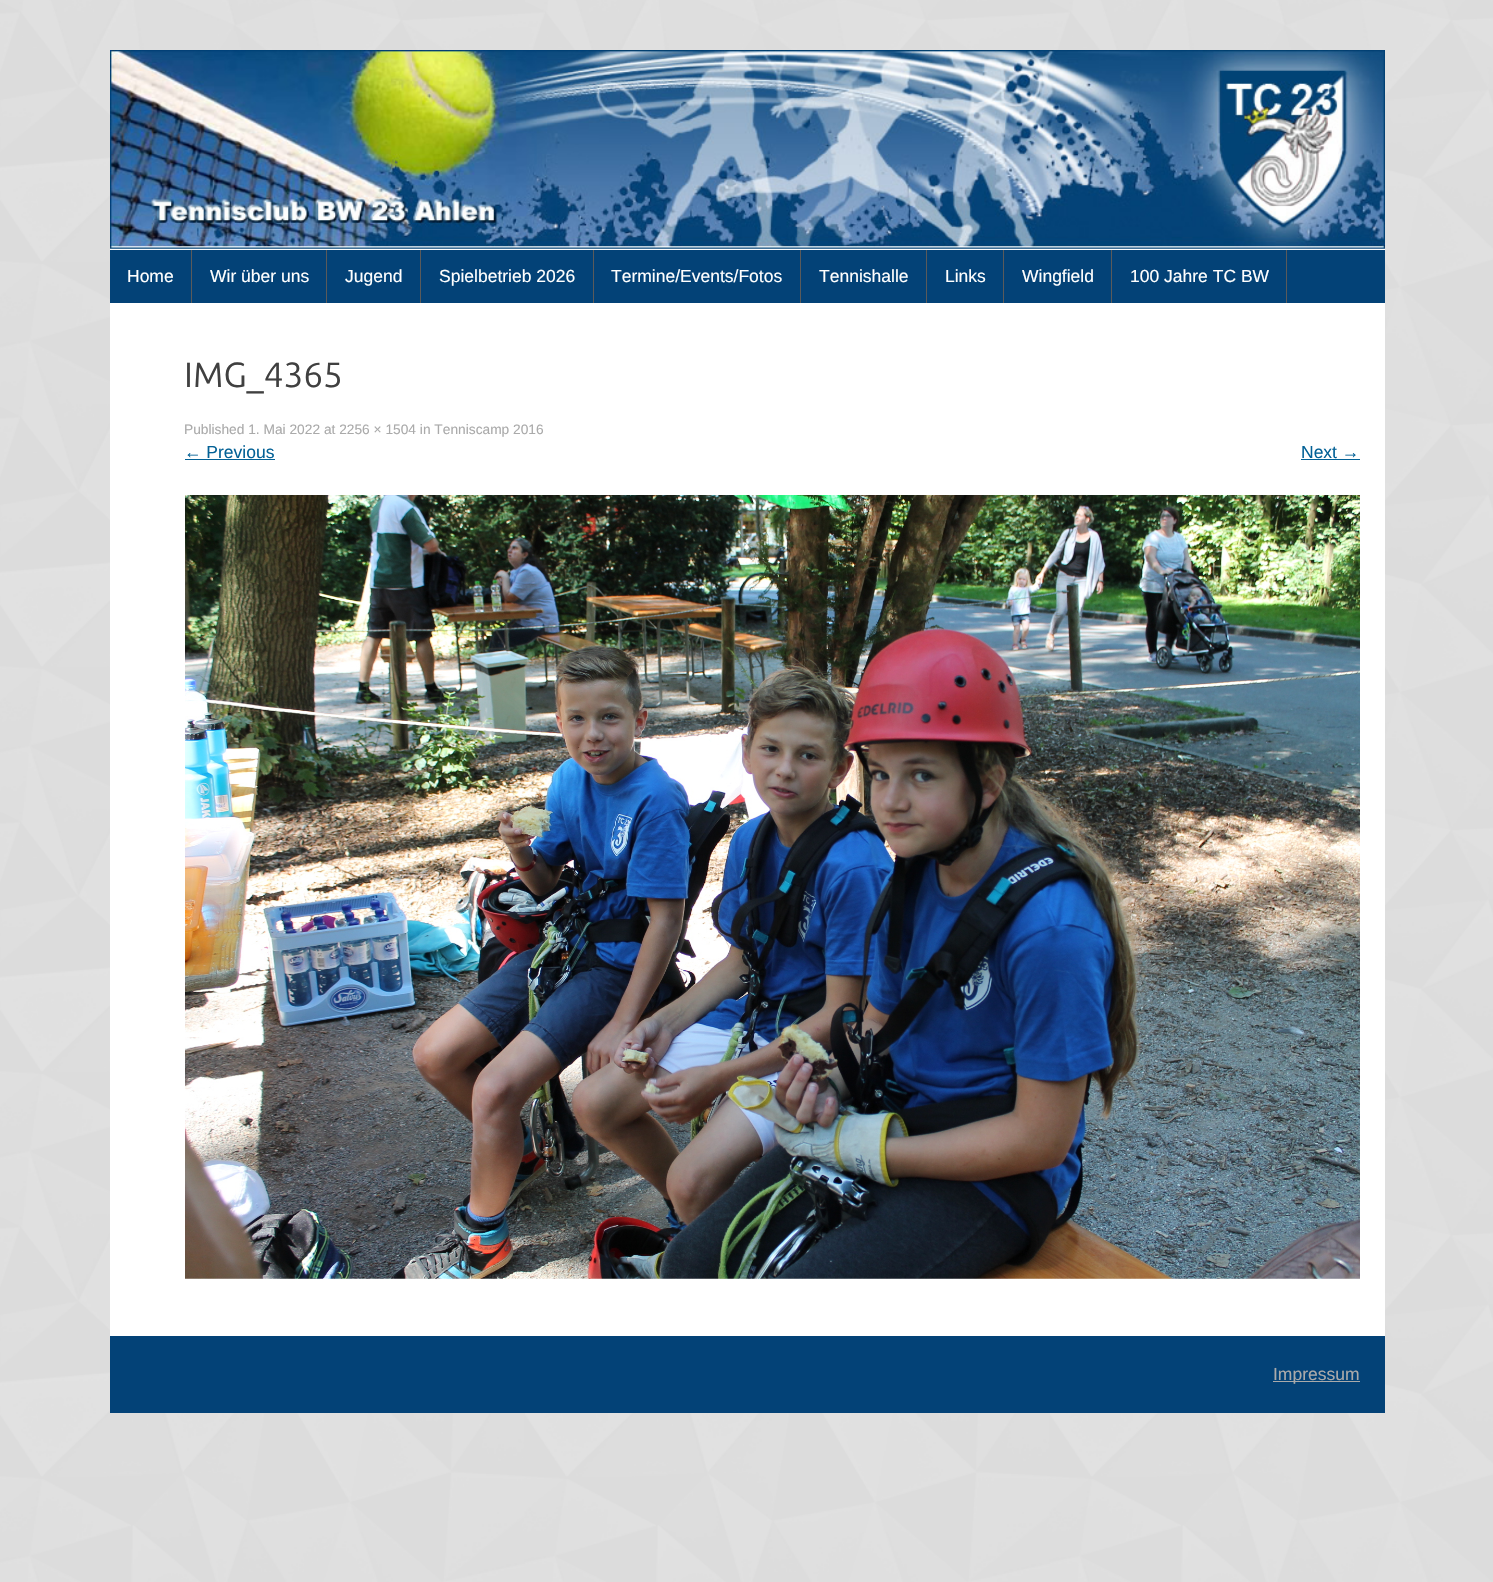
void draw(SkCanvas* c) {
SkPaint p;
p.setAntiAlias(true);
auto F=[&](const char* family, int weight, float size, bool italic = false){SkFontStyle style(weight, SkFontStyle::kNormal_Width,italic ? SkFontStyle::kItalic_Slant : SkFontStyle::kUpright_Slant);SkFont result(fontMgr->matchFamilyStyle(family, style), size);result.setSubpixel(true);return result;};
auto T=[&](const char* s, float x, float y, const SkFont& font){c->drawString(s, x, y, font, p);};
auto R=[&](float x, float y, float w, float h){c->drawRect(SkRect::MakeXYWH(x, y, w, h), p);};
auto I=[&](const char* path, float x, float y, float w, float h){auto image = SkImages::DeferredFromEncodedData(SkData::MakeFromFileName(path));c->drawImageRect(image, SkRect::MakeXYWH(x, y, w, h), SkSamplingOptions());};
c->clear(0xffffffff);
I("1.png",0,0,1493,1582);
p.setColor(0xffffffff);
R(110,248,1275,1088);
I("2.png",110,50,1275,199);
p.setColor(0xff034277);
R(110,250,1275,53);
p.setColor(0xff5a5a5a);
R(191,250,1,53);
auto f1 = F("Liberation Sans",400,17.5);
p.setColor(0xffffffff);
T("Home",127,282,f1);
p.setColor(0xff5a5a5a);
R(326,250,1,53);
p.setColor(0xffffffff);
T("Wir über uns",210,282,f1);
p.setColor(0xff5a5a5a);
R(420,250,1,53);
p.setColor(0xffffffff);
T("Jugend",345,282,f1);
p.setColor(0xff5a5a5a);
R(593,250,1,53);
p.setColor(0xffffffff);
T("Spielbetrieb 2026",439,282,f1);
p.setColor(0xff5a5a5a);
R(800,250,1,53);
p.setColor(0xffffffff);
T("Termine/Events/Fotos",611,282,f1);
p.setColor(0xff5a5a5a);
R(926,250,1,53);
p.setColor(0xffffffff);
T("Tennishalle",819,282,f1);
p.setColor(0xff5a5a5a);
R(1003,250,1,53);
p.setColor(0xffffffff);
T("Links",945,282,f1);
p.setColor(0xff5a5a5a);
R(1111,250,1,53);
p.setColor(0xffffffff);
T("Wingfield",1022,282,f1);
p.setColor(0xff5a5a5a);
R(1286,250,1,53);
p.setColor(0xffffffff);
T("100 Jahre TC BW",1130,282,f1);
auto f2 = F("Ubuntu",400,35);
p.setColor(0xff404040);
T("IMG_4365",184,387,f2);
auto f3 = F("Liberation Sans",400,13.75);
p.setColor(0xffaaaaaa);
T("Published 1. Mai 2022 at 2256 × 1504 in Tenniscamp 2016",184,434,f3);
p.setColor(0xff036196);
T("← Previous",184,458,f1);
R(185,459,90,1);
T("Next →",1301,458,f1);
R(1301,459,59,1);
I("3.png",185,495,1175,784);
p.setColor(0xff034277);
R(110,1336,1275,77);
p.setColor(0xffaaaaaa);
R(1273,1381,87,1);
T("Impressum",1273,1380,f1);
}
